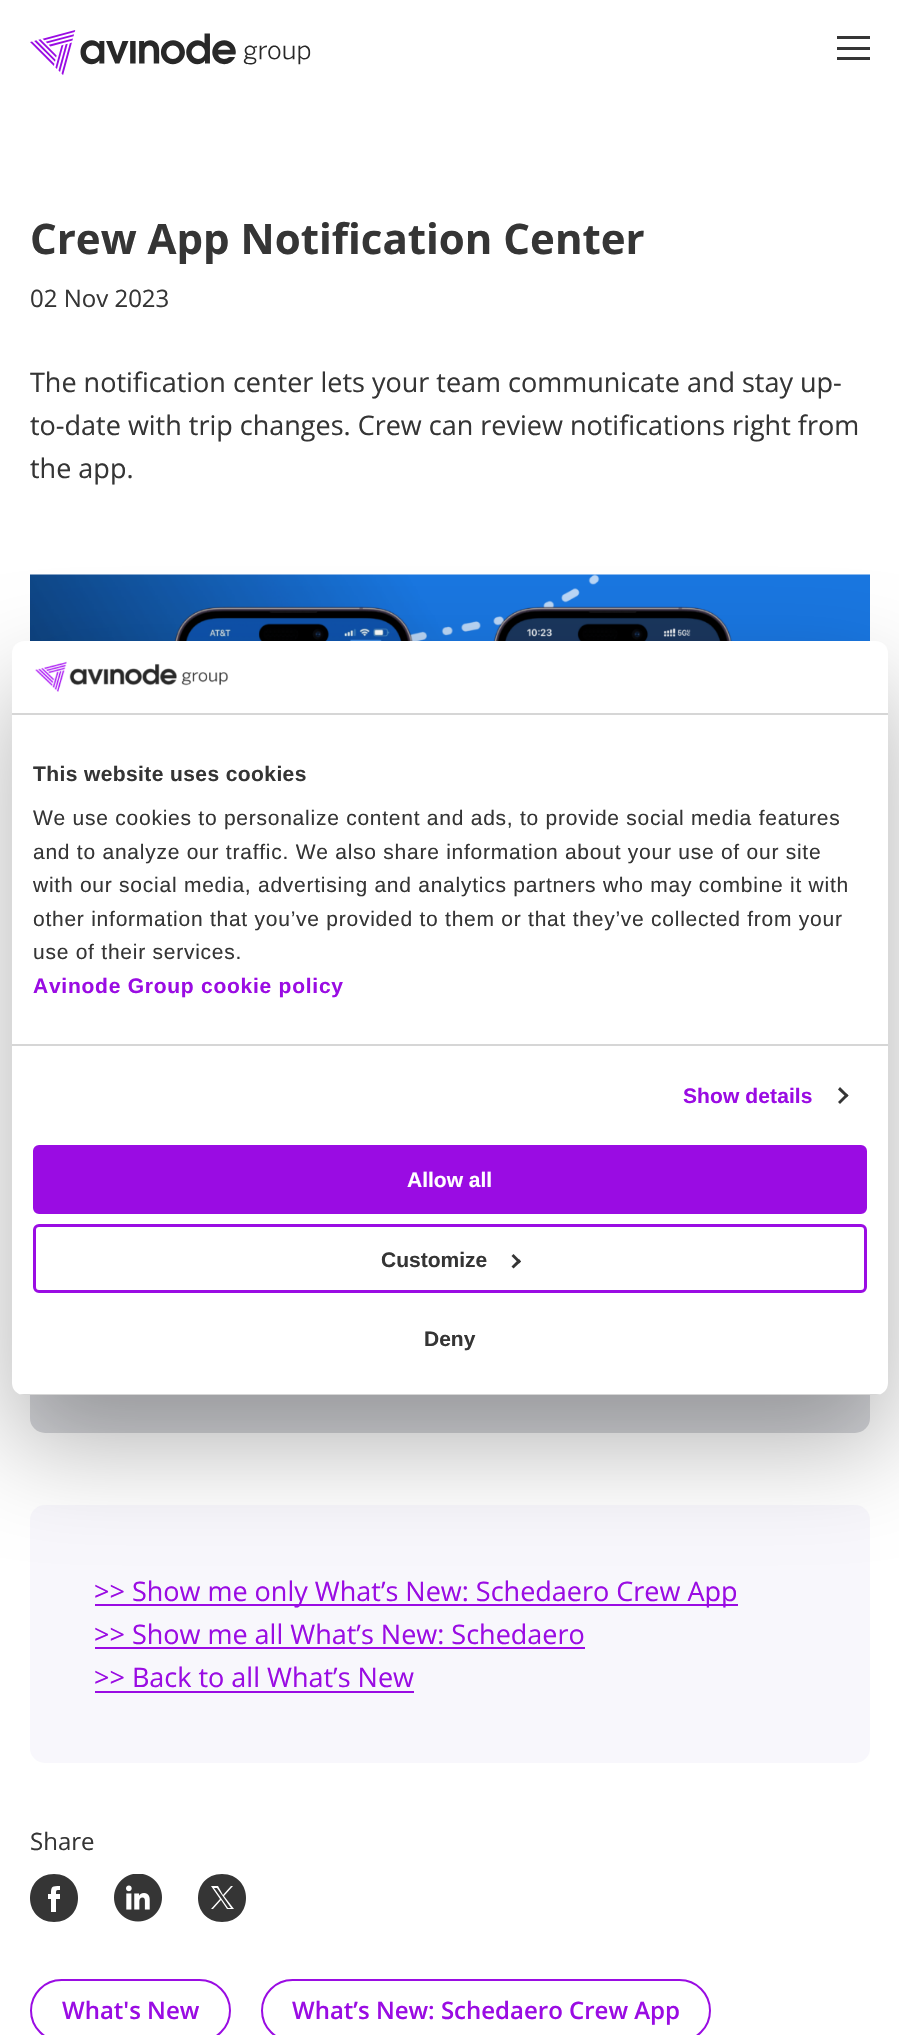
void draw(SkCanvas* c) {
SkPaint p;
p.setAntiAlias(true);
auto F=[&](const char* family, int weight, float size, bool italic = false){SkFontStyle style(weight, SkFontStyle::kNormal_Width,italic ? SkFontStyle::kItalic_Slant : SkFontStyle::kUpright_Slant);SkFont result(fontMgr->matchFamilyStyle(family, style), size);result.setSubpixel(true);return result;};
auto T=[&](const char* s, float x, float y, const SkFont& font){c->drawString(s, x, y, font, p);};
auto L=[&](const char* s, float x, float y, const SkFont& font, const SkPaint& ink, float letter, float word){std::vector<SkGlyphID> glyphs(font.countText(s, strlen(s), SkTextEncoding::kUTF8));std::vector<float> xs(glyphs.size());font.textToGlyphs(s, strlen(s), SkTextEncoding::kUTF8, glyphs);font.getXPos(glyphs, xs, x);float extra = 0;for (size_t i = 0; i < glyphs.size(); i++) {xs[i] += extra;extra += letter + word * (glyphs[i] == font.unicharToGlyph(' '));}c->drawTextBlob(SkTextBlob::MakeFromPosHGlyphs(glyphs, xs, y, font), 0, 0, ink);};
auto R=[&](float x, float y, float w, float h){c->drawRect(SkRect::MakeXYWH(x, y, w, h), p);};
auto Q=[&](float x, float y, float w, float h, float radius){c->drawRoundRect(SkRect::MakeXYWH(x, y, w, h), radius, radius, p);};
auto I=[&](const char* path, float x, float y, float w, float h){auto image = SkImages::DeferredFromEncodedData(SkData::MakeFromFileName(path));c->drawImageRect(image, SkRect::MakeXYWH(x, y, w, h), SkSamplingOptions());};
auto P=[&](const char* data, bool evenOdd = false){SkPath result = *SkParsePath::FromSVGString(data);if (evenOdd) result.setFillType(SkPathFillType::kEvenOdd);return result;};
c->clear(0xffffffff);
I("1.png",30,30,281,45);
p.setColor(0xff353535);
R(837,36,33,3);
R(837,47,33,3);
R(837,57,33,3);
auto f1 = F("Open Sans",700,42);
T("Crew App Notification Center",30,254,f1);
auto f2 = F("Open Sans",400,24);
T("02 Nov 2023",30,307,f2);
auto f3 = F("Open Sans",400,27);
T("The notification center lets your team communicate and stay up-",30,392,f3);
T("to-date with trip changes. Crew can review notifications right from",30,435,f3);
T("the app.",30,478,f3);
I("2.png",30,574,840,67);
p.setColor(0xffd7d8dc);
Q(30,1218,840,215,15);
p.setColor(0xfff8f7fc);
Q(30,1505,840,258,15);
p.setColor(0xff9a0ce3);
R(95,1604,643,2);
T(">> Show me only What’s New: Schedaero Crew App",94,1601,f3);
T(">> Show me all What’s New: Schedaero",94,1644,f3);
R(95,1647,490,2);
T(">> Back to all What’s New",94,1687,f3);
R(95,1691,319,2);
p.setColor(0xff353535);
T("Share",30,1850,f2);
c->drawPath(P("M54 1922c32 0 32-48 0-48c-32 0-32 48 0 48zm2-23v13h-5v-13h-3v-5h3c0-8 1-8 9-8v4c-4 0-4 0-4 4h4v5z",true),p);
I("3.png",114,1874,48,48);
c->drawPath(P("M222 1922c32 0 32-48 0-48c-32 0-32 48 0 48zm11-36l-9 10l10 13h-7l-6-9l-8 9h-2l9-10l-9-13h7l5 9l8-9zm-12 12l7 10h3l-14-20h-3z",true),p);
p.setStroke(true);
p.setStrokeWidth(2);
p.setColor(0xff9a0ce3);
c->drawRoundRect(SkRect::MakeXYWH(31,1980,199,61),30.5,30.5,p);
auto f4 = F("Open Sans",600,24);
p.setStroke(false);
T("What's New",62,2019,f4);
p.setStroke(true);
c->drawRoundRect(SkRect::MakeXYWH(262,1980,448,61),30.5,30.5,p);
p.setStroke(false);
T("What’s New: Schedaero Crew App",292,2019,f4);
p.setColor(0x4d000000);
p.setMaskFilter(SkMaskFilter::MakeBlur(kNormal_SkBlurStyle, 51));
c->drawRoundRect(SkRect::MakeXYWH(12,689,876,754),12,12,p);
p.setMaskFilter(nullptr);
p.setColor(0xffffffff);
Q(12,641,876,754,12);
p.setColor(0xffd6d6d6);
R(12,713,876,2);
I("4.png",35,661,194,31);
R(12,1044,876,2);
auto f5 = F("Liberation Sans",700,21);
p.setColor(0xff353535);
L("This website uses cookies",33,781,f5,p,.4,0);
auto f6 = F("Liberation Sans",400,21);
L("We use cookies to personalize content and ads, to provide social media features",33,825,f6,p,.75,0);
L("and to analyze our traffic. We also share information about your use of our site",33,859,f6,p,.75,0);
L("with our social media, advertising and analytics partners who may combine it with",33,892,f6,p,.75,0);
L("other information that you’ve provided to them or that they’ve collected from your",33,926,f6,p,.75,0);
L("use of their services.",33,959,f6,p,.75,0);
p.setColor(0xff9a0ce3);
L("Avinode Group cookie policy",33,993,f5,p,.75,0);
L("Show details",683,1103,f5,p,.1,0);
p.setColor(0xff353535);
c->drawPath(P("M840 1087l8.5 8.5l-2 2l-8.5-8z"),p);
c->drawPath(P("M846.5 1093.5l2 2l-8.5 8.5l-2-2z"),p);
c->save();
c->clipPath(P("M24 641h852c6.5 0 12 5.5 12 12v730c0 6.5-5.5 12-12 12h-852c-6.5 0-12-5.5-12-12v-730c0-6.5 5.5-12 12-12z"),true);
p.setColor(0xffd6d6d6);
R(12,1394,876,1);
c->restore();
p.setColor(0xff9a0ce3);
c->drawRoundRect(SkRect::MakeXYWH(34.5,1146.5,831,66),4.5,4.5,p);
p.setStroke(true);
p.setStrokeWidth(3);
c->drawRoundRect(SkRect::MakeXYWH(34.5,1146.5,831,66),4.5,4.5,p);
p.setStroke(false);
p.setColor(0xffffffff);
T("Allow all",407,1187,f5);
p.setStroke(true);
p.setColor(0xff9a0ce3);
c->drawRoundRect(SkRect::MakeXYWH(34.5,1225.5,831,66),4.5,4.5,p);
p.setStroke(false);
p.setColor(0xff353535);
T("Customize",381,1267,f5);
c->drawPath(P("M513.5 1254l7.5 7.5l-2 2l-7.5-7.5z"),p);
c->drawPath(P("M519 1259l2 2.5l-7.5 7l-2-2z"),p);
T("Deny",424,1346,f5);
}
